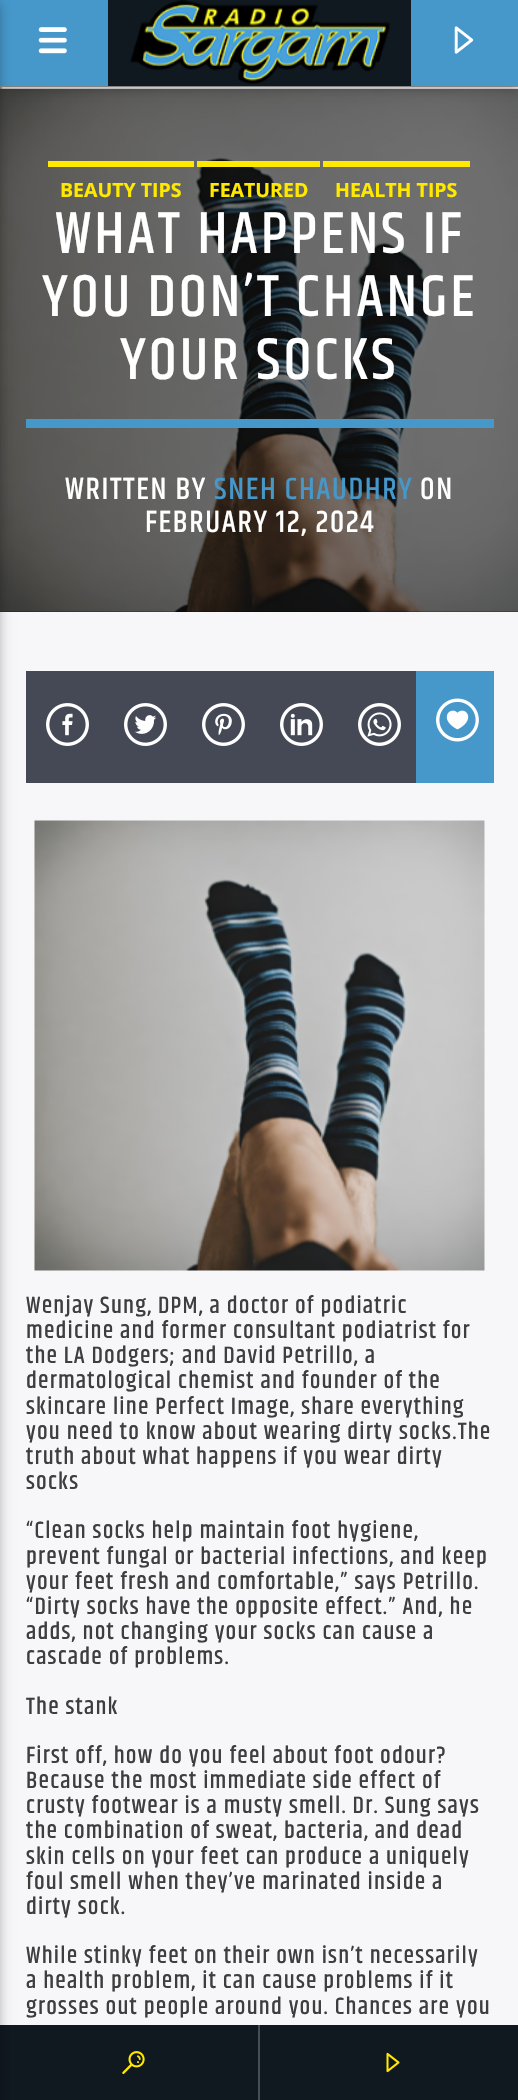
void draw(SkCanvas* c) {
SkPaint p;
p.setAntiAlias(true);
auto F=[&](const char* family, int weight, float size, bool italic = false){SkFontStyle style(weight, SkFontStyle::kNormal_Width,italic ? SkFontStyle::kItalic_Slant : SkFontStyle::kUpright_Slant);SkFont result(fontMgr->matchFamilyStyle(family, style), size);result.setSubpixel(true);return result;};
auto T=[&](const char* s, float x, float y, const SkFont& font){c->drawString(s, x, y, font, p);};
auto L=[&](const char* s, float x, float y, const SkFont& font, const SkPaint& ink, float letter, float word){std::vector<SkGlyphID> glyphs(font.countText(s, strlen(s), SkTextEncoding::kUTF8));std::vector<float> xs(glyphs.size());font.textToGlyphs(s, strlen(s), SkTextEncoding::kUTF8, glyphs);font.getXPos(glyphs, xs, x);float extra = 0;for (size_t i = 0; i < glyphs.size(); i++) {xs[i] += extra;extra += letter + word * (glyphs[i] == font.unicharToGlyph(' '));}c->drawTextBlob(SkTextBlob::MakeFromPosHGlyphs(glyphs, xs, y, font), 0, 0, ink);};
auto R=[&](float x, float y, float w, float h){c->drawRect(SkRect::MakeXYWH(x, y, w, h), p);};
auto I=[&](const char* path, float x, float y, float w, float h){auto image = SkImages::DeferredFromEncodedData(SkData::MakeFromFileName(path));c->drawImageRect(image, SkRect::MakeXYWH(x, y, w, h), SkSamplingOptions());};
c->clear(0xfff7f7f9);
p.setColor(0xff9f9f9f);
R(0,86,518,1);
p.setColor(0xffeeeeee);
R(0,87,518,2);
p.setColor(0xff9f9f9f);
R(0,86,2,3);
p.setColor(0xff000000);
R(0,89,518,523);
I("4.png",0,88,518,524);
p.setColor(0x1f000000);
p.setMaskFilter(SkMaskFilter::MakeBlur(kNormal_SkBlurStyle, 7.5));
c->drawRect(SkRect::MakeXYWH(0,3,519,86),p);
p.setMaskFilter(nullptr);
p.setColor(0x29000000);
p.setMaskFilter(SkMaskFilter::MakeBlur(kNormal_SkBlurStyle, 4));
c->drawRect(SkRect::MakeXYWH(0,3,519,86),p);
p.setMaskFilter(nullptr);
p.setColor(0xff101820);
R(108,0,303,86);
p.setColor(0xff4698cb);
R(0,0,108,86);
I("1.png",38,27,29,27);
I("2.png",130,0,260,84);
R(411,0,107,86);
I("3.png",454,26,20,28);
p.setColor(0xff101820);
R(0,2025,518,75);
p.setColor(0x1f000000);
p.setMaskFilter(SkMaskFilter::MakeBlur(kNormal_SkBlurStyle, 7.5));
c->drawRect(SkRect::MakeXYWH(-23,3,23,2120),p);
p.setMaskFilter(nullptr);
p.setColor(0x29000000);
p.setMaskFilter(SkMaskFilter::MakeBlur(kNormal_SkBlurStyle, 4));
c->drawRect(SkRect::MakeXYWH(-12,3,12,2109),p);
p.setMaskFilter(nullptr);
p.setColor(0xffffe900);
R(48,161,146,6);
auto f1 = F("Open Sans",700,19.5);
T("BEAUTY TIPS",60,197,f1);
R(197,161,123,6);
T("FEATURED",209,197,f1);
R(323,161,147,6);
T("HEALTH TIPS",335,197,f1);
p.setColor(0xff4698cb);
R(26,419,468,9);
auto f2 = F("Khand",500,60);
p.setColor(0xffffffff);
L("WHAT HAPPENS IF",55,253,f2,p,3,0);
L("YOU DON’T CHANGE",42,316,f2,p,3,0);
L("YOUR SOCKS",120,379,f2,p,3,0);
auto f3 = F("Khand",500,31.25);
L("WRITTEN BY",65,499,f3,p,1.6,0);
p.setColor(0xff4698cb);
L("SNEH CHAUDHRY",214,499,f3,p,1.6,0);
p.setColor(0xffffffff);
L("ON",420,499,f3,p,1.6,0);
L("FEBRUARY 12, 2024",145,532,f3,p,1.6,0);
p.setColor(0xff454955);
R(26,671,390,112);
I("5.png",46,703,43,43);
I("6.png",124,703,43,43);
I("7.png",202,703,43,43);
I("8.png",280,703,43,43);
I("9.png",358,703,43,43);
p.setColor(0xff4698cb);
R(416,671,78,112);
I("10.png",436,698,43,44);
I("11.png",34,820,451,451);
auto f4 = F("Khand",500,24);
p.setColor(0xff3e3e3e);
L("Wenjay Sung, DPM, a doctor of podiatric",26,1313,f4,p,1.2,0);
L("medicine and former consultant podiatrist for",26,1338,f4,p,1.2,0);
L("the LA Dodgers; and David Petrillo, a",26,1363,f4,p,1.2,0);
L("dermatological chemist and founder of the",26,1388,f4,p,1.2,0);
L("skincare line Perfect Image, share everything",26,1414,f4,p,1.2,0);
L("you need to know about wearing dirty socks.The",26,1439,f4,p,1.2,0);
L("truth about what happens if you wear dirty",26,1464,f4,p,1.2,0);
L("socks",26,1489,f4,p,1.2,0);
L("“Clean socks help maintain foot hygiene,",26,1538,f4,p,1.2,0);
L("prevent fungal or bacterial infections, and keep",26,1564,f4,p,1.2,0);
L("your feet fresh and comfortable,” says Petrillo.",26,1589,f4,p,1.2,0);
L("“Dirty socks have the opposite effect.” And, he",26,1614,f4,p,1.2,0);
L("adds, not changing your socks can cause a",26,1639,f4,p,1.2,0);
L("cascade of problems.",26,1664,f4,p,1.2,0);
L("The stank",26,1714,f4,p,1.2,0);
L("First off, how do you feel about foot odour?",26,1763,f4,p,1.2,0);
L("Because the most immediate side effect of",26,1788,f4,p,1.2,0);
L("crusty footwear is a musty smell. Dr. Sung says",26,1813,f4,p,1.2,0);
L("the combination of sweat, bacteria, and dead",26,1838,f4,p,1.2,0);
L("skin cells on your feet can produce a uniquely",26,1864,f4,p,1.2,0);
L("foul smell when they’ve marinated inside a",26,1889,f4,p,1.2,0);
L("dirty sock.",26,1914,f4,p,1.2,0);
L("While stinky feet on their own isn’t necessarily",26,1963,f4,p,1.2,0);
L("a health problem, it can cause problems if it",26,1988,f4,p,1.2,0);
L("grosses out people around you. Chances are you",26,2014,f4,p,1.2,0);
p.setColor(0xff474d52);
R(258,2025,2,75);
I("12.png",122,2051,23,23);
I("13.png",386,2052,14,21);
}
